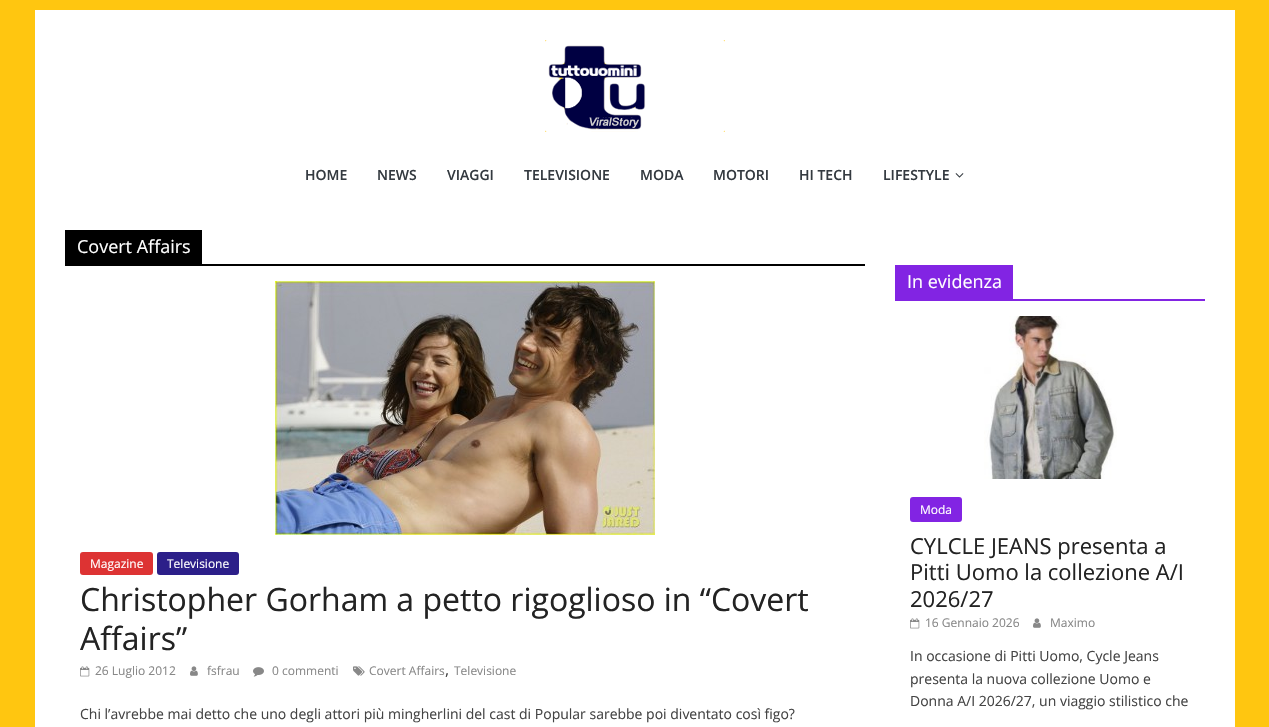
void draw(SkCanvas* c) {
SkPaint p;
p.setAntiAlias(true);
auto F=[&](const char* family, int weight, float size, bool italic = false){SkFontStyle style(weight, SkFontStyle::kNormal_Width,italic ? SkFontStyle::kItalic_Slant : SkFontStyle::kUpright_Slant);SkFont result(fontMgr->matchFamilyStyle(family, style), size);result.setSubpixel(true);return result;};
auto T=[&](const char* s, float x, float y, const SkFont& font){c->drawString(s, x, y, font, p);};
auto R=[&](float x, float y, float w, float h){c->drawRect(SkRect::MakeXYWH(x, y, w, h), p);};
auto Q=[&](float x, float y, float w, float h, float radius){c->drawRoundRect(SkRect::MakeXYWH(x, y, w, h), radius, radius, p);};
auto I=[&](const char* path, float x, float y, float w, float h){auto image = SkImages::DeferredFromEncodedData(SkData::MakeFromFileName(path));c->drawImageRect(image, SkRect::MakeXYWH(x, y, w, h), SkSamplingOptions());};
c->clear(0xffffc610);
p.setColor(0xffffffff);
R(35,10,1200,717);
I("1.png",545,40,180,92);
auto f1 = F("Open Sans",600,14);
p.setColor(0xff343a40);
T("HOME",305,180,f1);
T("NEWS",377,180,f1);
T("VIAGGI",447,180,f1);
T("TELEVISIONE",524,180,f1);
T("MODA",640,180,f1);
T("MOTORI",713,180,f1);
T("HI TECH",799,180,f1);
T("LIFESTYLE",883,180,f1);
I("2.png",955,173,9,5);
p.setColor(0xff000000);
R(65,264,800,2);
R(65,230,137,34);
auto f2 = F("Open Sans",400,18);
p.setColor(0xffffffff);
T("Covert Affairs",77,253,f2);
I("3.png",275,281,380,254);
p.setColor(0xffdd3333);
Q(80,552,73,23,3);
auto f3 = F("Open Sans",400,12);
p.setColor(0xffffffff);
T("Magazine",90,568,f3);
p.setColor(0xff2c1f89);
Q(157,552,82,23,3);
p.setColor(0xffffffff);
T("Televisione",167,568,f3);
auto f4 = F("Open Sans",400,32);
p.setColor(0xff232323);
T("Christopher Gorham a petto rigoglioso in “Covert",80,611,f4);
T("Affairs”",80,650,f4);
I("4.png",80,666,10,11);
p.setColor(0xff888888);
T("26 Luglio 2012",95,675,f3);
I("5.png",190,666,8,10);
T("fsfrau",207,675,f3);
I("6.png",253,667,11,10);
T("0 commenti",272,675,f3);
I("7.png",353,666,12,10);
T("Covert Affairs",369,675,f3);
auto f5 = F("Open Sans",400,16);
p.setColor(0xff444444);
T(",",445,675,f5);
p.setColor(0xff888888);
T("Televisione",454,675,f3);
auto f6 = F("Open Sans",400,14);
p.setColor(0xff444444);
T("Chi l’avrebbe mai detto che uno degli attori più mingherlini del cast di Popular sarebbe poi diventato così figo?",80,719,f6);
p.setColor(0xff8224e3);
R(895,299,310,2);
R(895,265,118,34);
p.setColor(0xffffffff);
T("In evidenza",907,288,f2);
I("8.png",984,316,133,163);
p.setColor(0xff8224e3);
Q(910,497,52,25,3);
p.setColor(0xffffffff);
T("Moda",920,514,f3);
auto f7 = F("Open Sans",400,22);
p.setColor(0xff232323);
T("CYLCLE JEANS presenta a",910,554,f7);
T("Pitti Uomo la collezione A/I",910,580,f7);
T("2026/27",910,607,f7);
I("4.png",910,618,10,11);
p.setColor(0xff888888);
T("16 Gennaio 2026",925,627,f3);
I("5.png",1033,618,8,10);
T("Maximo",1050,627,f3);
p.setColor(0xff444444);
T("In occasione di Pitti Uomo, Cycle Jeans",910,661,f6);
T("presenta la nuova collezione Uomo e",910,684,f6);
T("Donna A/I 2026/27, un viaggio stilistico che",910,706,f6);
}
